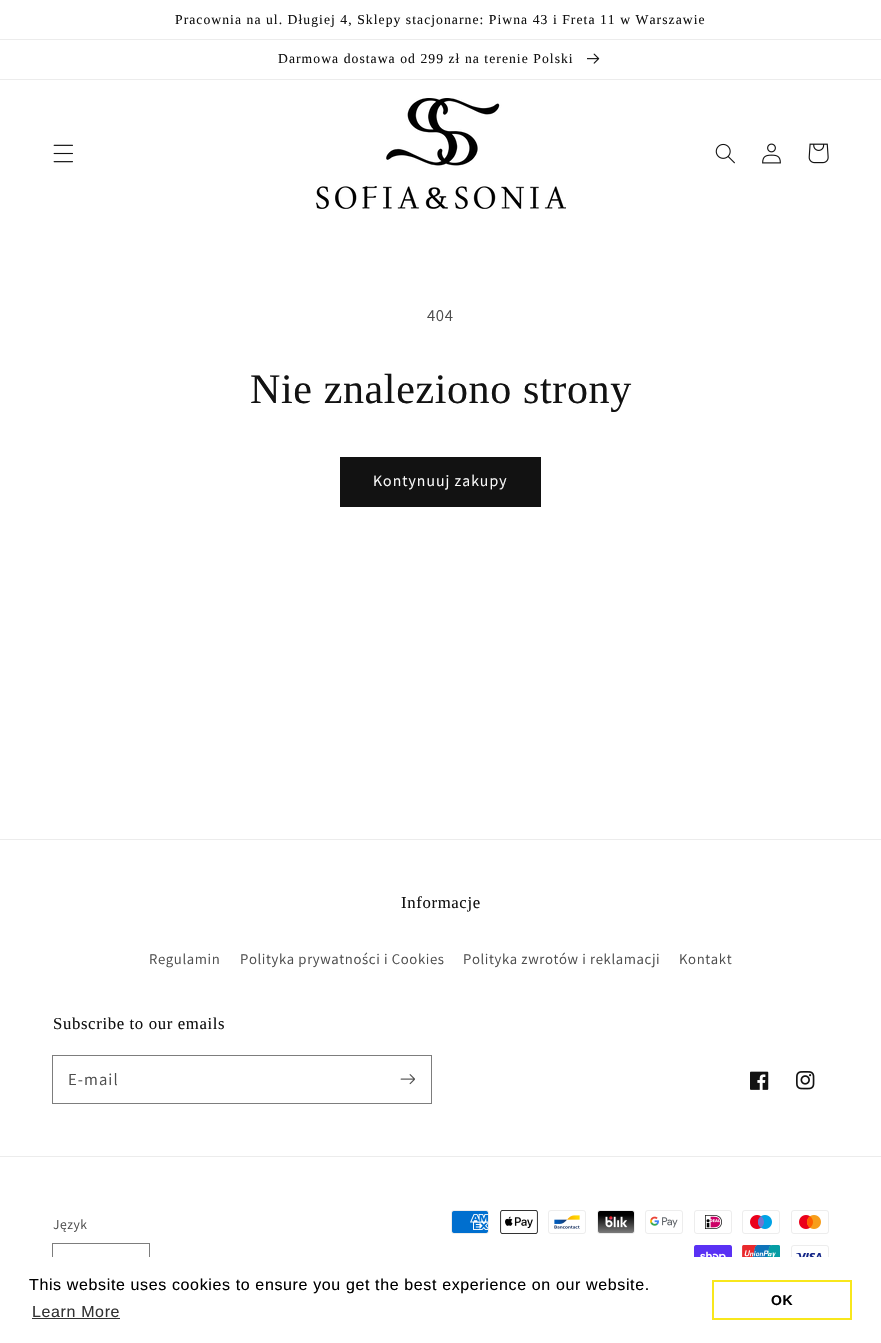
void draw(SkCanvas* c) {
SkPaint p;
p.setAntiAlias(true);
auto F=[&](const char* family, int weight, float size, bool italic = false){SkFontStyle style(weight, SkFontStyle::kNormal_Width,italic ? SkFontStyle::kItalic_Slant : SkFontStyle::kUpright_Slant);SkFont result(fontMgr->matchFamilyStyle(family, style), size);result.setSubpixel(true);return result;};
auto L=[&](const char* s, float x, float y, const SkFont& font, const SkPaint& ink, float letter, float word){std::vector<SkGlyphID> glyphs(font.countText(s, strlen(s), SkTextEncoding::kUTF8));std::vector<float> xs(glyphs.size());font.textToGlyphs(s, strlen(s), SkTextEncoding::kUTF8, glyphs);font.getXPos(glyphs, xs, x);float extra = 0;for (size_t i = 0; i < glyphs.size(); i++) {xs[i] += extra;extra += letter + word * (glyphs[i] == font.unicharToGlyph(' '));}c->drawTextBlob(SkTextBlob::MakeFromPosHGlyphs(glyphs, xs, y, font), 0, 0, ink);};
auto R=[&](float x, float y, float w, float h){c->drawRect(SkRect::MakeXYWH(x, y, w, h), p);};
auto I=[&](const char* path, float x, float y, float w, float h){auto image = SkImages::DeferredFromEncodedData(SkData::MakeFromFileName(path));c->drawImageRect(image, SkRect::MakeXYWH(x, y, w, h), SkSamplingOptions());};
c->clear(0xffffffff);
p.setColor(0xffececec);
R(0,39,881,1);
auto f1 = F("Liberation Serif",400,13.65);
p.setColor(0xff121212);
L("Pracownia na ul. Długiej 4, Sklepy stacjonarne: Piwna 43 i Freta 11 w Warszawie",175,24,f1,p,1.05,0);
p.setColor(0xffececec);
R(0,79,881,1);
p.setColor(0xff121212);
L("Darmowa dostawa od 299 zł na terenie Polski",278,63,f1,p,1.05,0);
I("1.png",587,53,13,11);
I("2.png",53,144,20,19);
I("3.png",316,98,250,111);
I("4.png",715,143,20,21);
I("5.png",762,143,19,21);
I("6.png",808,143,21,21);
auto f2 = F("Assistant",400,16.75);
p.setColor(0xff4d4d4d);
L("404",427,321,f2,p,.63,0);
auto f3 = F("Liberation Serif",400,42);
p.setColor(0xff121212);
L("Nie znaleziono strony",250,403,f3,p,.63,0);
p.setStroke(true);
p.setStrokeWidth(1);
c->drawRect(SkRect::MakeXYWH(340.5,457.5,200,49),p);
p.setStroke(false);
R(341,458,199,48);
auto f4 = F("Assistant",400,15.75);
p.setColor(0xffffffff);
L("Kontynuuj zakupy",373,486,f4,p,1.05,0);
p.setColor(0xffececec);
R(0,839,881,1);
auto f5 = F("Liberation Serif",400,16.75);
p.setColor(0xff121212);
L("Informacje",401,908,f5,p,.63,0);
auto f6 = F("Assistant",400,14.75);
p.setColor(0xff4d4d4d);
L("Regulamin",149,964,f6,p,.63,0);
L("Polityka prywatności i Cookies",240,964,f6,p,.63,0);
L("Polityka zwrotów i reklamacji",463,964,f6,p,.63,0);
L("Kontakt",679,964,f6,p,.63,0);
p.setColor(0xff121212);
L("Subscribe to our emails",53,1029,f5,p,.63,0);
p.setStroke(true);
p.setColor(0xff7d7d7d);
c->drawRect(SkRect::MakeXYWH(52.5,1055.5,379,48),p);
p.setStroke(false);
p.setColor(0xff4d4d4d);
L("E-mail",68,1085,f2,p,1.05,0);
I("7.png",400,1074,15,11);
I("8.png",750,1071,19,19);
I("9.png",796,1071,19,19);
p.setColor(0xffececec);
R(0,1156,881,1);
auto f7 = F("Assistant",400,13.65);
p.setColor(0xff4d4d4d);
L("Język",53,1229,f7,p,.5,0);
p.setStroke(true);
p.setColor(0xff7d7d7d);
c->drawRect(SkRect::MakeXYWH(52.5,1243.5,97,43),p);
I("10.png",451,1210,38,24);
I("11.png",500,1210,38,24);
I("12.png",548,1210,38,24);
I("13.png",597,1210,38,24);
I("14.png",645,1210,38,24);
I("15.png",694,1210,38,24);
I("16.png",742,1210,38,24);
I("17.png",791,1210,38,24);
I("18.png",694,1245,38,12);
I("19.png",742,1245,38,12);
I("20.png",791,1245,38,12);
p.setStroke(false);
p.setColor(0xffffffff);
R(52,1257,98,30);
auto f8 = F("Liberation Sans",400,16);
p.setColor(0xff000000);
L("This website uses cookies to ensure you get the best experience on our website.",29,1290,f8,p,.63,0);
p.setColor(0xff333333);
L("Learn More",32,1317,f8,p,.63,0);
R(32,1318,88,1);
p.setStroke(true);
p.setStrokeWidth(2);
p.setColor(0xfff8e71c);
c->drawRect(SkRect::MakeXYWH(713,1281,138,38),p);
auto f9 = F("Liberation Sans",700,14);
p.setStroke(false);
p.setColor(0xff000000);
L("OK",771,1305,f9,p,.63,0);
}
